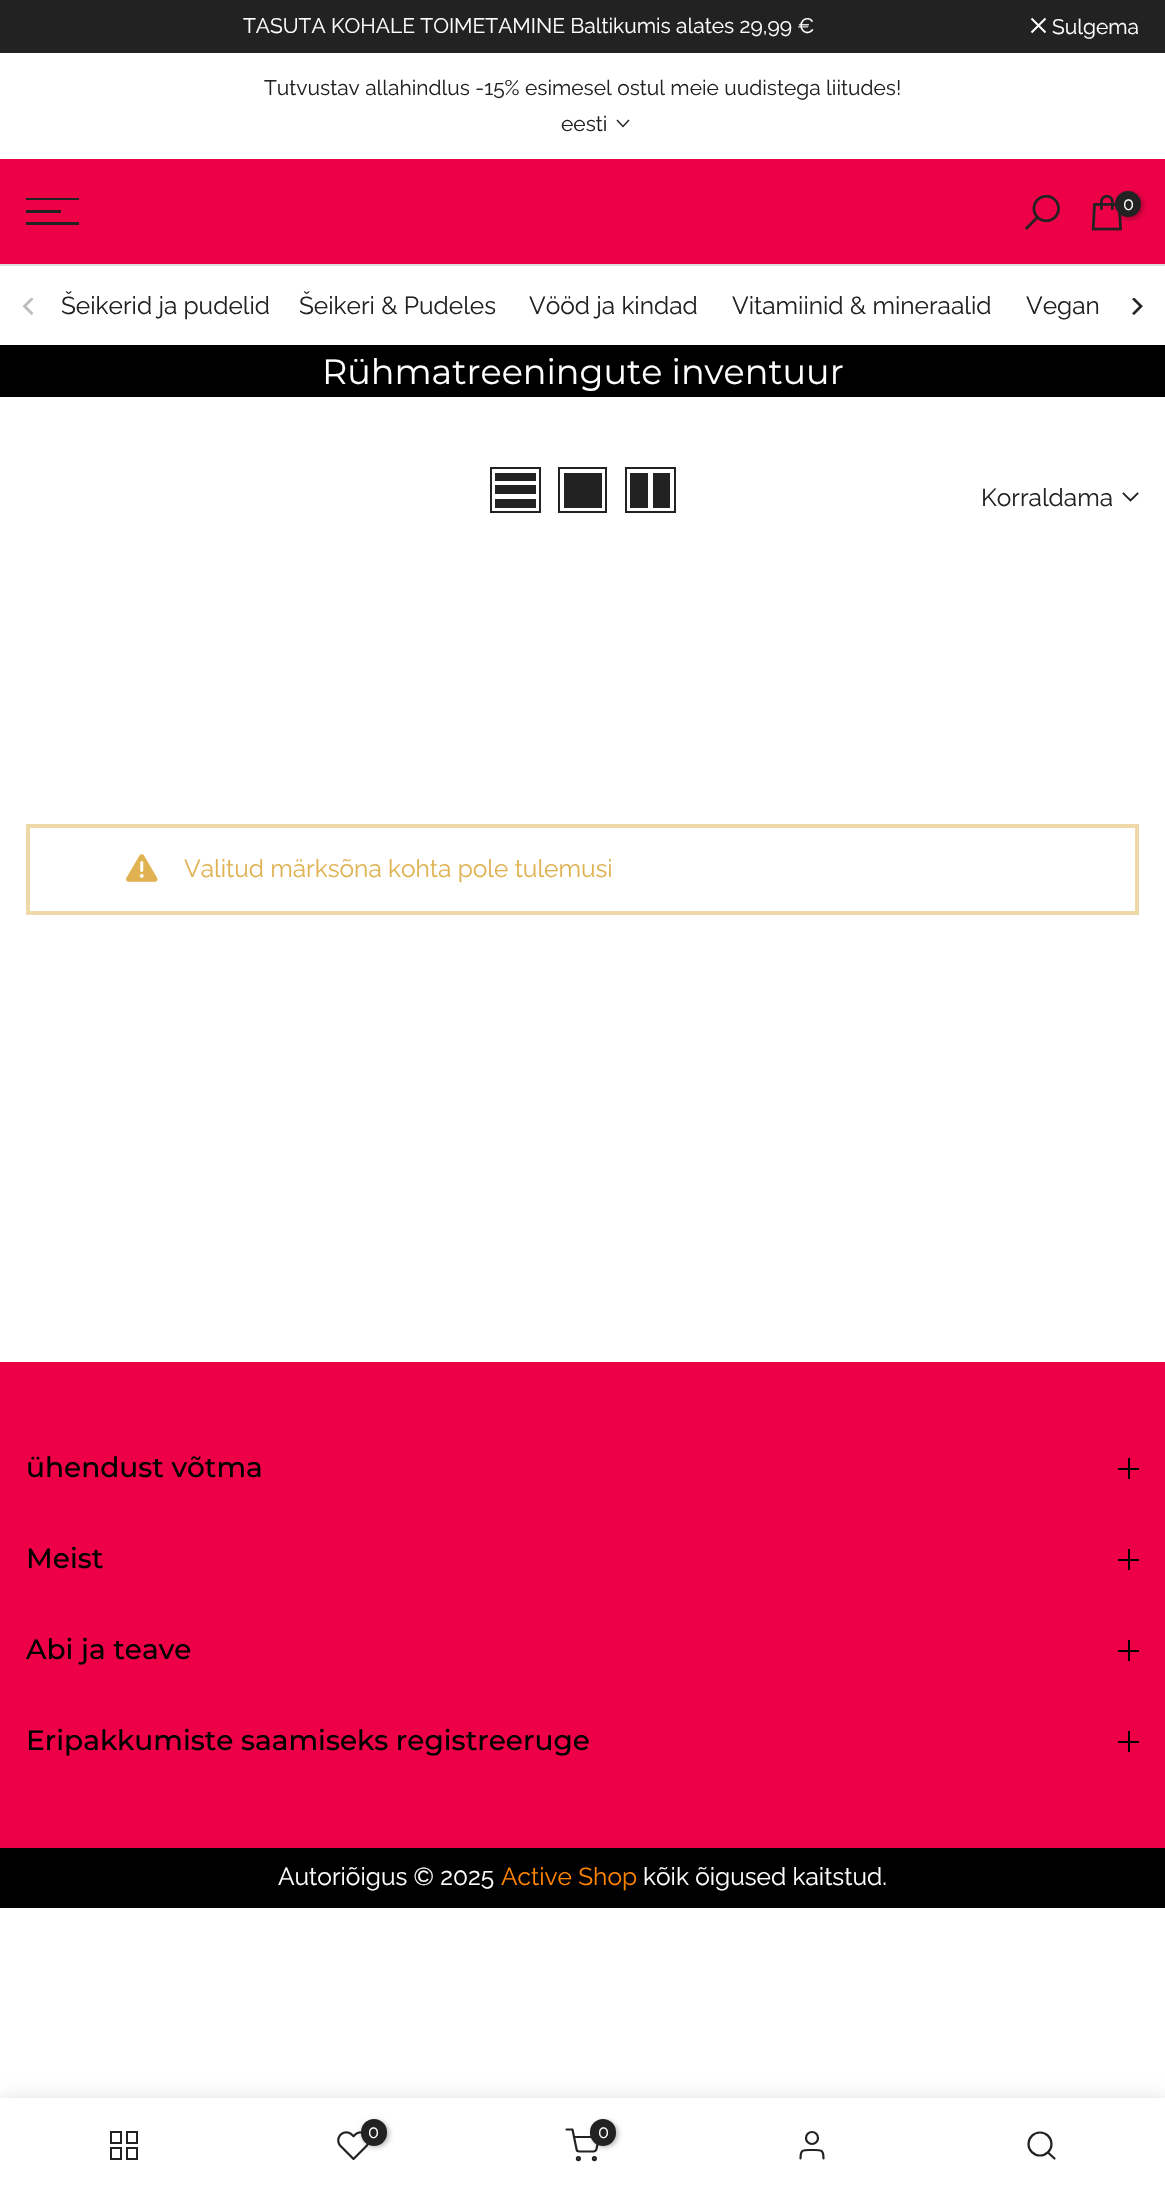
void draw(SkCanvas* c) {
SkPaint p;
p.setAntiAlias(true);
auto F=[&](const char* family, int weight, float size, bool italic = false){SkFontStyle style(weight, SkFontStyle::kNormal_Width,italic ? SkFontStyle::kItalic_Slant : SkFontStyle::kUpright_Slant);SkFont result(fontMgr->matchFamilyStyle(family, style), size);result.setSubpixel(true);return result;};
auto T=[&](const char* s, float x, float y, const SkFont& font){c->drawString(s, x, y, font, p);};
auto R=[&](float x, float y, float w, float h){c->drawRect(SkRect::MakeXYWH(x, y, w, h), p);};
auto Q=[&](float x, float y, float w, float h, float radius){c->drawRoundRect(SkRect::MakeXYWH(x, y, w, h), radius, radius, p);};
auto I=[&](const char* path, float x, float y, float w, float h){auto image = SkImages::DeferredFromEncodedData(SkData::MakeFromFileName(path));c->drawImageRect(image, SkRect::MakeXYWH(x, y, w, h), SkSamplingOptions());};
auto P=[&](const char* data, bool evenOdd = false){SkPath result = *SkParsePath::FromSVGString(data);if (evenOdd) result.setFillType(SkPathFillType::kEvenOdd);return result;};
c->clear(0xffffffff);
p.setColor(0xff222222);
R(0,0,1165,53);
auto f1 = F("Raleway",400,21);
p.setColor(0xffffffff);
T("TASUTA KOHALE TOIMETAMINE Baltikumis alates 29,99 €",243,33,f1);
p.setStroke(true);
p.setStrokeWidth(2);
c->drawPath(P("M1045.5 18.5l-14 14m14 0l-14-14"),p);
p.setStroke(false);
T("Sulgema",1052,34,f1);
p.setColor(0xff222222);
T("Tutvustav allahindlus -15% esimesel ostul meie uudistega liitudes!",264,95,f1);
T("eesti",561,131,f1);
p.setStroke(true);
p.setStrokeWidth(1.5);
p.setStrokeCap(SkPaint::kSquare_Cap);
c->drawPath(P("M628.5 120.5l-5.5 6l-5.5-6"),p);
p.setStroke(false);
p.setColor(0xffed0046);
R(0,159,1165,105);
p.setColor(0xff222222);
R(26,198,53,2);
R(26,210,35,3);
R(26,222,53,3);
I("1.png",1024,194,36,36);
I("2.png",1091,194,31,37);
p.setColor(0x4d000000);
p.setMaskFilter(SkMaskFilter::MakeBlur(kNormal_SkBlurStyle, 2.5));
c->drawRoundRect(SkRect::MakeXYWH(1117,193,26,26),13,13,p);
p.setMaskFilter(nullptr);
p.setColor(0xff222222);
c->drawCircle(1128,204,13,p);
auto f2 = F("Raleway",400,18);
p.setColor(0xffffffff);
T("0",1123,210,f2);
p.setColor(0xffdddddd);
R(0,264,1165,2);
I("3.png",22,298,12,17);
auto f3 = F("Raleway",400,24.5);
p.setColor(0xff222222);
T("Šeikerid ja pudelid",61,314,f3);
T("Šeikeri & Pudeles",299,314,f3);
T("Vööd ja kindad",529,314,f3);
T("Vitamiinid & mineraalid",732,314,f3);
T("Vegan",1026,314,f3);
I("4.png",1132,298,11,17);
p.setColor(0xff000000);
R(0,345,1165,52);
auto f4 = F("Montserrat",400,35);
p.setColor(0xffffffff);
T("Rühmatreeningute inventuur",322,384,f4);
p.setStroke(true);
p.setStrokeWidth(2);
p.setStrokeCap(SkPaint::kButt_Cap);
p.setColor(0xff222222);
c->drawRect(SkRect::MakeXYWH(491,468,49,44),p);
p.setStroke(false);
R(495,499,41,9);
R(495,485,41,9);
R(495,473,41,8);
p.setStroke(true);
c->drawRect(SkRect::MakeXYWH(559,468,47,44),p);
p.setStroke(false);
R(564,473,38,35);
p.setStroke(true);
c->drawRect(SkRect::MakeXYWH(626,468,49,44),p);
p.setStroke(false);
R(653,473,17,35);
R(630,473,18,35);
T("Korraldama",981,506,f3);
p.setStroke(true);
p.setStrokeWidth(1.8);
p.setStrokeCap(SkPaint::kSquare_Cap);
c->drawPath(P("M1137.5 493.5l-7 7l-7-7"),p);
p.setStrokeWidth(4);
p.setStrokeCap(SkPaint::kButt_Cap);
p.setColor(0xfff0d9a9);
c->drawRect(SkRect::MakeXYWH(28,826,1109,87),p);
I("5.png",126,854,32,28);
p.setStroke(false);
p.setColor(0xffe0b252);
T("Valitud märksõna kohta pole tulemusi",184,877,f3);
p.setColor(0xffed0046);
R(0,1362,1165,486);
auto f5 = F("Montserrat",500,28);
p.setColor(0xff000000);
T("ühendust võtma",26,1477,f5);
R(1128,1458,2,21);
R(1118,1468,21,2);
T("Meist",26,1568,f5);
R(1128,1549,2,21);
R(1118,1559,21,2);
T("Abi ja teave",26,1659,f5);
R(1128,1640,2,21);
R(1118,1650,21,2);
T("Eripakkumiste saamiseks registreeruge",26,1750,f5);
R(1128,1731,2,21);
R(1118,1741,21,2);
R(0,1848,1165,60);
p.setColor(0xffffffff);
T("Autoriõigus © 2025",278,1885,f3);
p.setColor(0xffff8400);
T("Active Shop",501,1885,f3);
p.setColor(0xffffffff);
T("kõik õigused kaitstud.",643,1885,f3);
p.setColor(0x1f000000);
p.setMaskFilter(SkMaskFilter::MakeBlur(kNormal_SkBlurStyle, 8));
c->drawRect(SkRect::MakeXYWH(0,2098,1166,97),p);
p.setMaskFilter(nullptr);
p.setColor(0xffffffff);
R(0,2098,1165,96);
p.setStroke(true);
p.setStrokeWidth(2);
p.setColor(0xff222222);
c->drawRect(SkRect::MakeXYWH(111,2132,10,11),p);
c->drawRect(SkRect::MakeXYWH(127,2132,10,11),p);
c->drawRect(SkRect::MakeXYWH(111,2148,10,11),p);
c->drawRect(SkRect::MakeXYWH(127,2148,10,11),p);
I("6.png",337,2131,32,29);
p.setStroke(false);
p.setColor(0x4d000000);
p.setMaskFilter(SkMaskFilter::MakeBlur(kNormal_SkBlurStyle, 2.5));
c->drawRoundRect(SkRect::MakeXYWH(362,2121,27,26),13,13,p);
p.setMaskFilter(nullptr);
p.setColor(0xff222222);
Q(361,2119,26,27,13);
p.setColor(0xffffffff);
T("0",368,2138,f2);
p.setStroke(true);
p.setStrokeWidth(2.2);
p.setStrokeCap(SkPaint::kRound_Cap);
p.setStrokeJoin(SkPaint::kRound_Join);
p.setColor(0xff222222);
c->drawPath(P("M566.5 2129.5h6l4 19.5c0 1.5 1.5 2.5 3 2.5h14c1.5 0 2.5-1 3-2.5l2.5-12h-25"),p);
p.setStroke(false);
p.setColor(0x4d000000);
p.setMaskFilter(SkMaskFilter::MakeBlur(kNormal_SkBlurStyle, 2.5));
c->drawRoundRect(SkRect::MakeXYWH(592,2121,26,26),13,13,p);
p.setMaskFilter(nullptr);
p.setColor(0xff222222);
Q(590,2119,26,27,13);
p.setColor(0xffffffff);
T("0",598,2138,f2);
p.setStroke(true);
p.setStrokeCap(SkPaint::kButt_Cap);
p.setStrokeJoin(SkPaint::kMiter_Join);
p.setColor(0xff222222);
c->drawCircle(578.4,2158.6,1.5,p);
c->drawCircle(594.4,2158.6,1.5,p);
c->drawCircle(812,2138,6,p);
p.setStrokeCap(SkPaint::kRound_Cap);
p.setStrokeJoin(SkPaint::kRound_Join);
c->drawPath(P("M823.5 2158.5c0-9.5-3-8.5-11.5-8.5c-8.5 0-11.5-1-11.5 8.5"),p);
p.setStrokeCap(SkPaint::kButt_Cap);
p.setStrokeJoin(SkPaint::kMiter_Join);
c->drawCircle(1040,2144,11.5,p);
p.setStrokeCap(SkPaint::kRound_Cap);
p.setStrokeJoin(SkPaint::kRound_Join);
c->drawPath(P("M1054.5 2158.5l-6.5-6"),p);
}
